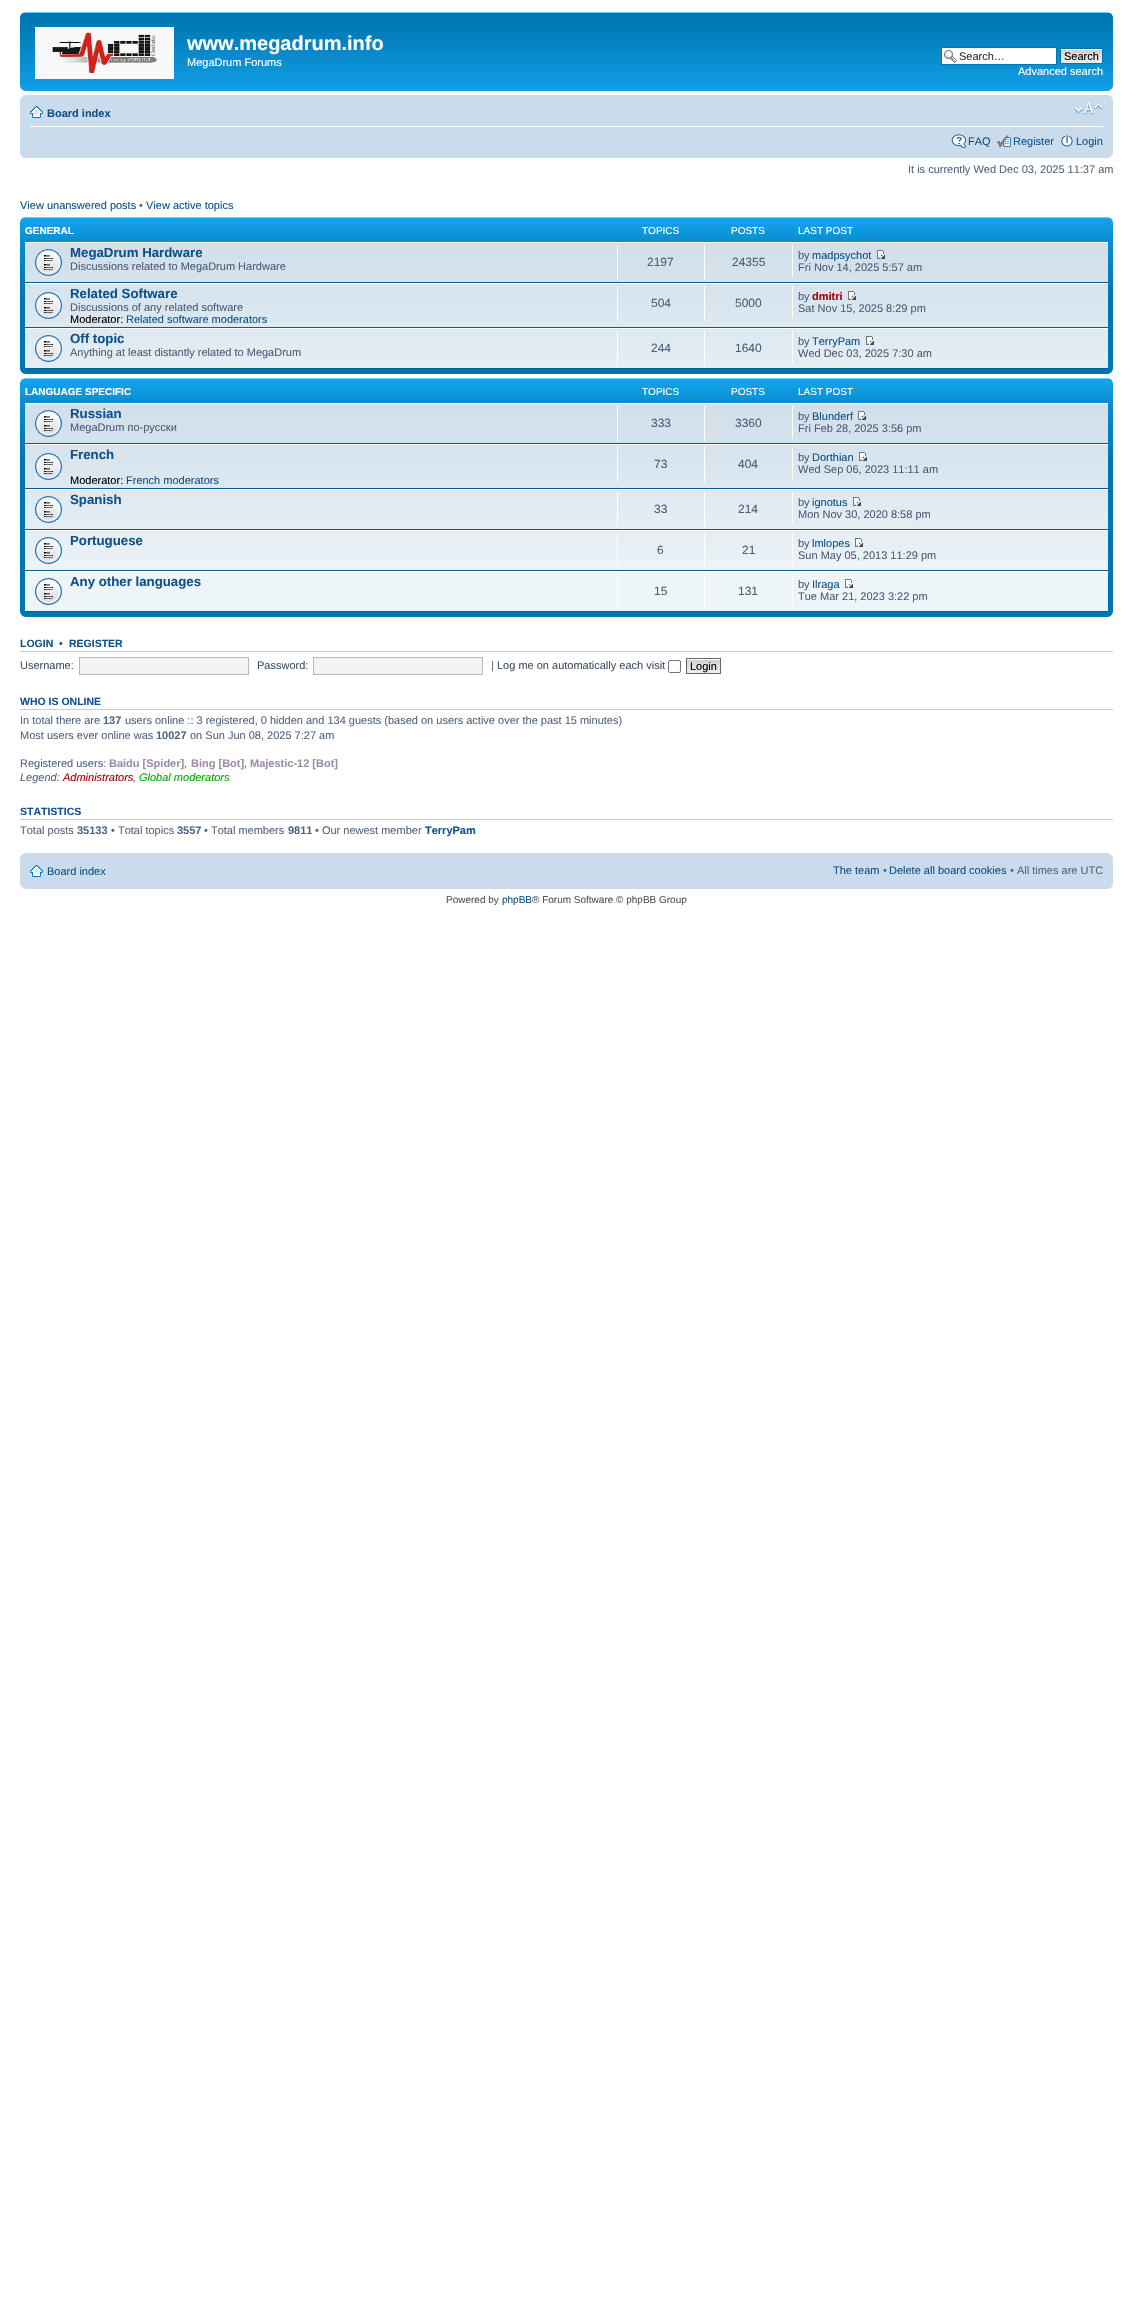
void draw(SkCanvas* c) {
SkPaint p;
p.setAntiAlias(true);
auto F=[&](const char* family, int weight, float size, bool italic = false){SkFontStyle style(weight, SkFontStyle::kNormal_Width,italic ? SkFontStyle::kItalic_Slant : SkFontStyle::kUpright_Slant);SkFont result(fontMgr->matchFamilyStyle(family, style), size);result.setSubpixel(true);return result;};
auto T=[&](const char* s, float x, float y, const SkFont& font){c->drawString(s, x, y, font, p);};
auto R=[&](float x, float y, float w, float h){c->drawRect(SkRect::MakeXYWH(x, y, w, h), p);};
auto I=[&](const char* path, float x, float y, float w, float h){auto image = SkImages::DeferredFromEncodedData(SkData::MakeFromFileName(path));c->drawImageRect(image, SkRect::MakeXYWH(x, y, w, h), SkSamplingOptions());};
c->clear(0xffffffff);
I("1.png",20,12,1093,79);
I("2.png",20,12,5,5);
I("3.png",1108,12,5,5);
I("4.png",35,27,139,52);
auto f1 = F("Liberation Sans",700,20);
p.setColor(0xffffffff);
T("www.megadrum.info",187,50,f1);
auto f2 = F("Liberation Sans",400,11);
T("MegaDrum Forums",187,66,f2);
R(942,48,114,16);
I("5.png",944,50,13,13);
p.setStroke(true);
p.setStrokeWidth(1);
p.setColor(0xff0075b0);
c->drawRect(SkRect::MakeXYWH(941.5,47.5,115,17),p);
p.setStroke(false);
p.setColor(0xff333333);
T("Search…",959,60,f2);
I("6.png",1061,49,41,14);
p.setStroke(true);
p.setColor(0xff0075b0);
c->drawRect(SkRect::MakeXYWH(1060.5,48.5,42,15),p);
p.setStroke(false);
p.setColor(0xff000000);
T("Search",1064,60,f2);
p.setColor(0xffffffff);
T("Advanced search",1018,75,f2);
I("7.png",20,86,5,5);
I("8.png",1108,86,5,5);
p.setColor(0xffcadceb);
R(20,95,1093,63);
I("9.png",20,95,5,5);
I("10.png",1108,95,5,5);
p.setColor(0xffffffff);
R(30,126,1073,1);
I("11.png",30,106,13,12);
auto f3 = F("Liberation Sans",700,11);
p.setColor(0xff105289);
T("Board index",47,117,f3);
I("12.png",1074,103,29,12);
I("13.png",951,134,16,14);
T("FAQ",968,145,f2);
I("14.png",997,135,14,13);
T("Register",1013,145,f2);
I("15.png",1061,135,12,12);
T("Login",1076,145,f2);
I("16.png",20,153,5,5);
I("17.png",1108,153,5,5);
p.setColor(0xff536482);
T("It is currently Wed Dec 03, 2025 11:37 am",908,173,f2);
p.setColor(0xff105289);
T("View unanswered posts",20,209,f2);
p.setColor(0xff536482);
T("•",139,209,f2);
p.setColor(0xff105289);
T("View active topics",146,209,f2);
p.setColor(0xff0076b1);
R(20,294,1093,80);
I("18.png",20,217,1093,77);
I("19.png",20,217,5,5);
I("20.png",1108,217,5,5);
auto f4 = F("Liberation Sans",700,10);
p.setColor(0xffffffff);
T("GENERAL",25,234,f4);
auto f5 = F("Liberation Sans",400,10);
T("TOPICS",642,234,f5);
T("POSTS",731,234,f5);
T("LAST POST",798,234,f5);
I("21.png",25,243,1083,125);
R(25,242,1083,1);
p.setColor(0xff00608f);
R(25,282,1083,1);
I("22.png",35,249,27,27);
auto f6 = F("Liberation Sans",700,13.25);
p.setColor(0xff105289);
T("MegaDrum Hardware",70,257,f6);
p.setColor(0xff4c5d77);
T("Discussions related to MegaDrum Hardware",70,270,f2);
p.setColor(0xffffffff);
R(617,245,1,35);
auto f7 = F("Liberation Sans",400,12);
p.setColor(0xff4c5d77);
T("2197",647,266,f7);
p.setColor(0xffffffff);
R(704,245,1,35);
p.setColor(0xff4c5d77);
T("24355",732,266,f7);
p.setColor(0xffffffff);
R(792,245,1,32);
p.setColor(0xff4c5d77);
T("by",798,259,f2);
p.setColor(0xff105289);
T("madpsychot",812,259,f2);
I("23.png",877,250,8,9);
p.setColor(0xff4c5d77);
T("Fri Nov 14, 2025 5:57 am",798,271,f2);
p.setColor(0xffffffff);
R(25,283,1083,1);
p.setColor(0xff00608f);
R(25,327,1083,1);
I("24.png",35,292,27,27);
p.setColor(0xff105289);
T("Related Software",70,298,f6);
p.setColor(0xff4c5d77);
T("Discussions of any related software",70,311,f2);
p.setColor(0xff000000);
T("Moderator:",70,323,f2);
p.setColor(0xff105289);
T("Related software moderators",126,323,f2);
p.setColor(0xffffffff);
R(617,286,1,35);
p.setColor(0xff4c5d77);
T("504",651,307,f7);
p.setColor(0xffffffff);
R(704,286,1,35);
p.setColor(0xff4c5d77);
T("5000",735,307,f7);
p.setColor(0xffffffff);
R(792,286,1,32);
p.setColor(0xff4c5d77);
T("by",798,300,f2);
p.setColor(0xffaa0000);
T("dmitri",812,300,f3);
I("25.png",848,291,8,9);
p.setColor(0xff4c5d77);
T("Sat Nov 15, 2025 8:29 pm",798,312,f2);
p.setColor(0xffffffff);
R(25,328,1083,1);
p.setColor(0xff00608f);
R(25,368,1083,1);
I("26.png",35,335,27,27);
p.setColor(0xff105289);
T("Off topic",70,343,f6);
p.setColor(0xff4c5d77);
T("Anything at least distantly related to MegaDrum",70,356,f2);
p.setColor(0xffffffff);
R(617,331,1,35);
p.setColor(0xff4c5d77);
T("244",651,352,f7);
p.setColor(0xffffffff);
R(704,331,1,35);
p.setColor(0xff4c5d77);
T("1640",735,352,f7);
p.setColor(0xffffffff);
R(792,331,1,32);
p.setColor(0xff4c5d77);
T("by",798,345,f2);
p.setColor(0xff105289);
T("TerryPam",812,345,f2);
I("27.png",866,336,8,9);
p.setColor(0xff4c5d77);
T("Wed Dec 03, 2025 7:30 am",798,357,f2);
I("28.png",20,369,5,5);
I("29.png",1108,369,5,5);
p.setColor(0xff0076b1);
R(20,455,1093,162);
I("18.png",20,378,1093,77);
I("19.png",20,378,5,5);
I("20.png",1108,378,5,5);
p.setColor(0xffffffff);
T("LANGUAGE SPECIFIC",25,395,f4);
T("TOPICS",642,395,f5);
T("POSTS",731,395,f5);
T("LAST POST",798,395,f5);
p.setColor(0xffeef5f9);
R(25,561,1083,50);
I("30.png",25,404,1083,157);
p.setColor(0xffffffff);
R(25,403,1083,1);
p.setColor(0xff00608f);
R(25,443,1083,1);
I("22.png",35,410,27,27);
p.setColor(0xff105289);
T("Russian",70,418,f6);
p.setColor(0xff4c5d77);
T("MegaDrum по-русски",70,431,f2);
p.setColor(0xffffffff);
R(617,406,1,35);
p.setColor(0xff4c5d77);
T("333",651,427,f7);
p.setColor(0xffffffff);
R(704,406,1,35);
p.setColor(0xff4c5d77);
T("3360",735,427,f7);
p.setColor(0xffffffff);
R(792,406,1,32);
p.setColor(0xff4c5d77);
T("by",798,420,f2);
p.setColor(0xff105289);
T("Blunderf",812,420,f2);
I("23.png",858,411,8,9);
p.setColor(0xff4c5d77);
T("Fri Feb 28, 2025 3:56 pm",798,432,f2);
p.setColor(0xffffffff);
R(25,444,1083,1);
p.setColor(0xff00608f);
R(25,488,1083,1);
I("24.png",35,453,27,27);
p.setColor(0xff105289);
T("French",70,459,f6);
p.setColor(0xff000000);
T("Moderator:",70,484,f2);
p.setColor(0xff105289);
T("French moderators",126,484,f2);
p.setColor(0xffffffff);
R(617,447,1,35);
p.setColor(0xff4c5d77);
T("73",654,468,f7);
p.setColor(0xffffffff);
R(704,447,1,35);
p.setColor(0xff4c5d77);
T("404",738,468,f7);
p.setColor(0xffffffff);
R(792,447,1,32);
p.setColor(0xff4c5d77);
T("by",798,461,f2);
p.setColor(0xff105289);
T("Dorthian",812,461,f2);
I("25.png",859,452,8,9);
p.setColor(0xff4c5d77);
T("Wed Sep 06, 2023 11:11 am",798,473,f2);
p.setColor(0xffffffff);
R(25,489,1083,1);
p.setColor(0xff00608f);
R(25,529,1083,1);
I("26.png",35,496,27,27);
p.setColor(0xff105289);
T("Spanish",70,504,f6);
p.setColor(0xffffffff);
R(617,492,1,35);
p.setColor(0xff4c5d77);
T("33",654,513,f7);
p.setColor(0xffffffff);
R(704,492,1,35);
p.setColor(0xff4c5d77);
T("214",738,513,f7);
p.setColor(0xffffffff);
R(792,492,1,32);
p.setColor(0xff4c5d77);
T("by",798,506,f2);
p.setColor(0xff105289);
T("ignotus",812,506,f2);
I("27.png",853,497,8,9);
p.setColor(0xff4c5d77);
T("Mon Nov 30, 2020 8:58 pm",798,518,f2);
p.setColor(0xffffffff);
R(25,530,1083,1);
p.setColor(0xff00608f);
R(25,570,1083,1);
I("31.png",35,537,27,27);
p.setColor(0xff105289);
T("Portuguese",70,545,f6);
p.setColor(0xffffffff);
R(617,533,1,35);
p.setColor(0xff4c5d77);
T("6",657,554,f7);
p.setColor(0xffffffff);
R(704,533,1,35);
p.setColor(0xff4c5d77);
T("21",742,554,f7);
p.setColor(0xffffffff);
R(792,533,1,32);
p.setColor(0xff4c5d77);
T("by",798,547,f2);
p.setColor(0xff105289);
T("lmlopes",812,547,f2);
I("32.png",855,538,8,9);
p.setColor(0xff4c5d77);
T("Sun May 05, 2013 11:29 pm",798,559,f2);
p.setColor(0xffffffff);
R(25,571,1083,1);
p.setColor(0xff00608f);
R(25,611,1083,1);
I("33.png",35,578,27,27);
p.setColor(0xff105289);
T("Any other languages",70,586,f6);
p.setColor(0xffffffff);
R(617,574,1,35);
p.setColor(0xff4c5d77);
T("15",654,595,f7);
p.setColor(0xffffffff);
R(704,574,1,35);
p.setColor(0xff4c5d77);
T("131",738,595,f7);
p.setColor(0xffffffff);
R(792,574,1,32);
p.setColor(0xff4c5d77);
T("by",798,588,f2);
p.setColor(0xff105289);
T("Ilraga",812,588,f2);
I("34.png",845,579,8,9);
p.setColor(0xff4c5d77);
T("Tue Mar 21, 2023 3:22 pm",798,600,f2);
I("28.png",20,612,5,5);
I("29.png",1108,612,5,5);
p.setColor(0xffcccccc);
R(20,651,1093,1);
auto f8 = F("Liberation Sans",700,10.5);
p.setColor(0xff105289);
T("LOGIN",20,647,f8);
p.setColor(0xff115098);
T("•",59,647,f8);
p.setColor(0xff105289);
T("REGISTER",69,647,f8);
p.setColor(0xff425067);
T("Username:",20,669,f2);
p.setColor(0xfff2f3f3);
c->drawRect(SkRect::MakeXYWH(79.5,657.5,169,17),p);
p.setStroke(true);
p.setColor(0xffb4bac0);
c->drawRect(SkRect::MakeXYWH(79.5,657.5,169,17),p);
p.setStroke(false);
p.setColor(0xff425067);
T("Password:",257,669,f2);
p.setColor(0xfff2f3f3);
c->drawRect(SkRect::MakeXYWH(313.5,657.5,169,17),p);
p.setStroke(true);
p.setColor(0xffb4bac0);
c->drawRect(SkRect::MakeXYWH(313.5,657.5,169,17),p);
p.setStroke(false);
p.setColor(0xff536482);
T("|",491,669,f2);
p.setColor(0xff425067);
T("Log me on automatically each visit",497,669,f2);
p.setStroke(true);
p.setColor(0xff767676);
c->drawRoundRect(SkRect::MakeXYWH(668.5,660.5,12,12),1.5,1.5,p);
I("35.png",687,659,33,14);
p.setColor(0xff666666);
c->drawRect(SkRect::MakeXYWH(686.5,658.5,34,15),p);
p.setStroke(false);
p.setColor(0xff000000);
T("Login",690,670,f2);
p.setColor(0xffcccccc);
R(20,709,1093,1);
p.setColor(0xff115098);
T("WHO IS ONLINE",20,705,f8);
p.setColor(0xff536482);
T("In total there are",20,724,f2);
T("137",103,724,f3);
T("users online :: 3 registered, 0 hidden and 134 guests (based on users active over the past 15 minutes)",125,724,f2);
T("Most users ever online was",20,739,f2);
T("10027",156,739,f3);
T("on Sun Jun 08, 2025 7:27 am",190,739,f2);
T("Registered users:",20,767,f2);
p.setColor(0xff9e8da7);
T("Baidu [Spider]",109,767,f3);
p.setColor(0xff536482);
T(",",184,767,f2);
p.setColor(0xff9e8da7);
T("Bing [Bot]",191,767,f3);
p.setColor(0xff536482);
T(",",244,767,f2);
p.setColor(0xff9e8da7);
T("Majestic-12 [Bot]",250,767,f3);
auto f9 = F("Liberation Sans",400,11,true);
p.setColor(0xff536482);
T("Legend:",20,781,f9);
p.setColor(0xffaa0000);
T("Administrators",63,781,f9);
p.setColor(0xff536482);
T(",",133,781,f9);
p.setColor(0xff00aa00);
T("Global moderators",139,781,f9);
p.setColor(0xffcccccc);
R(20,819,1093,1);
p.setColor(0xff115098);
T("STATISTICS",20,815,f8);
p.setColor(0xff536482);
T("Total posts",20,834,f2);
T("35133",77,834,f3);
T("• Total topics",111,834,f2);
T("3557",177,834,f3);
T("• Total members",204,834,f2);
T("9811",288,834,f3);
T("• Our newest member",315,834,f2);
p.setColor(0xff105289);
T("TerryPam",425,834,f3);
p.setColor(0xffcadceb);
R(20,853,1093,36);
I("9.png",20,853,5,5);
I("10.png",1108,853,5,5);
I("11.png",30,865,13,12);
p.setColor(0xff105289);
T("Board index",47,875,f2);
T("The team",833,874,f2);
p.setColor(0xff536482);
T("•",883,874,f2);
p.setColor(0xff105289);
T("Delete all board cookies",889,874,f2);
p.setColor(0xff536482);
T("• All times are UTC",1010,874,f2);
I("16.png",20,884,5,5);
I("17.png",1108,884,5,5);
p.setColor(0xff555555);
T("Powered by",446,903,f5);
p.setColor(0xff105289);
T("phpBB",502,903,f5);
p.setColor(0xff555555);
T("® Forum Software © phpBB Group",532,903,f5);
}
